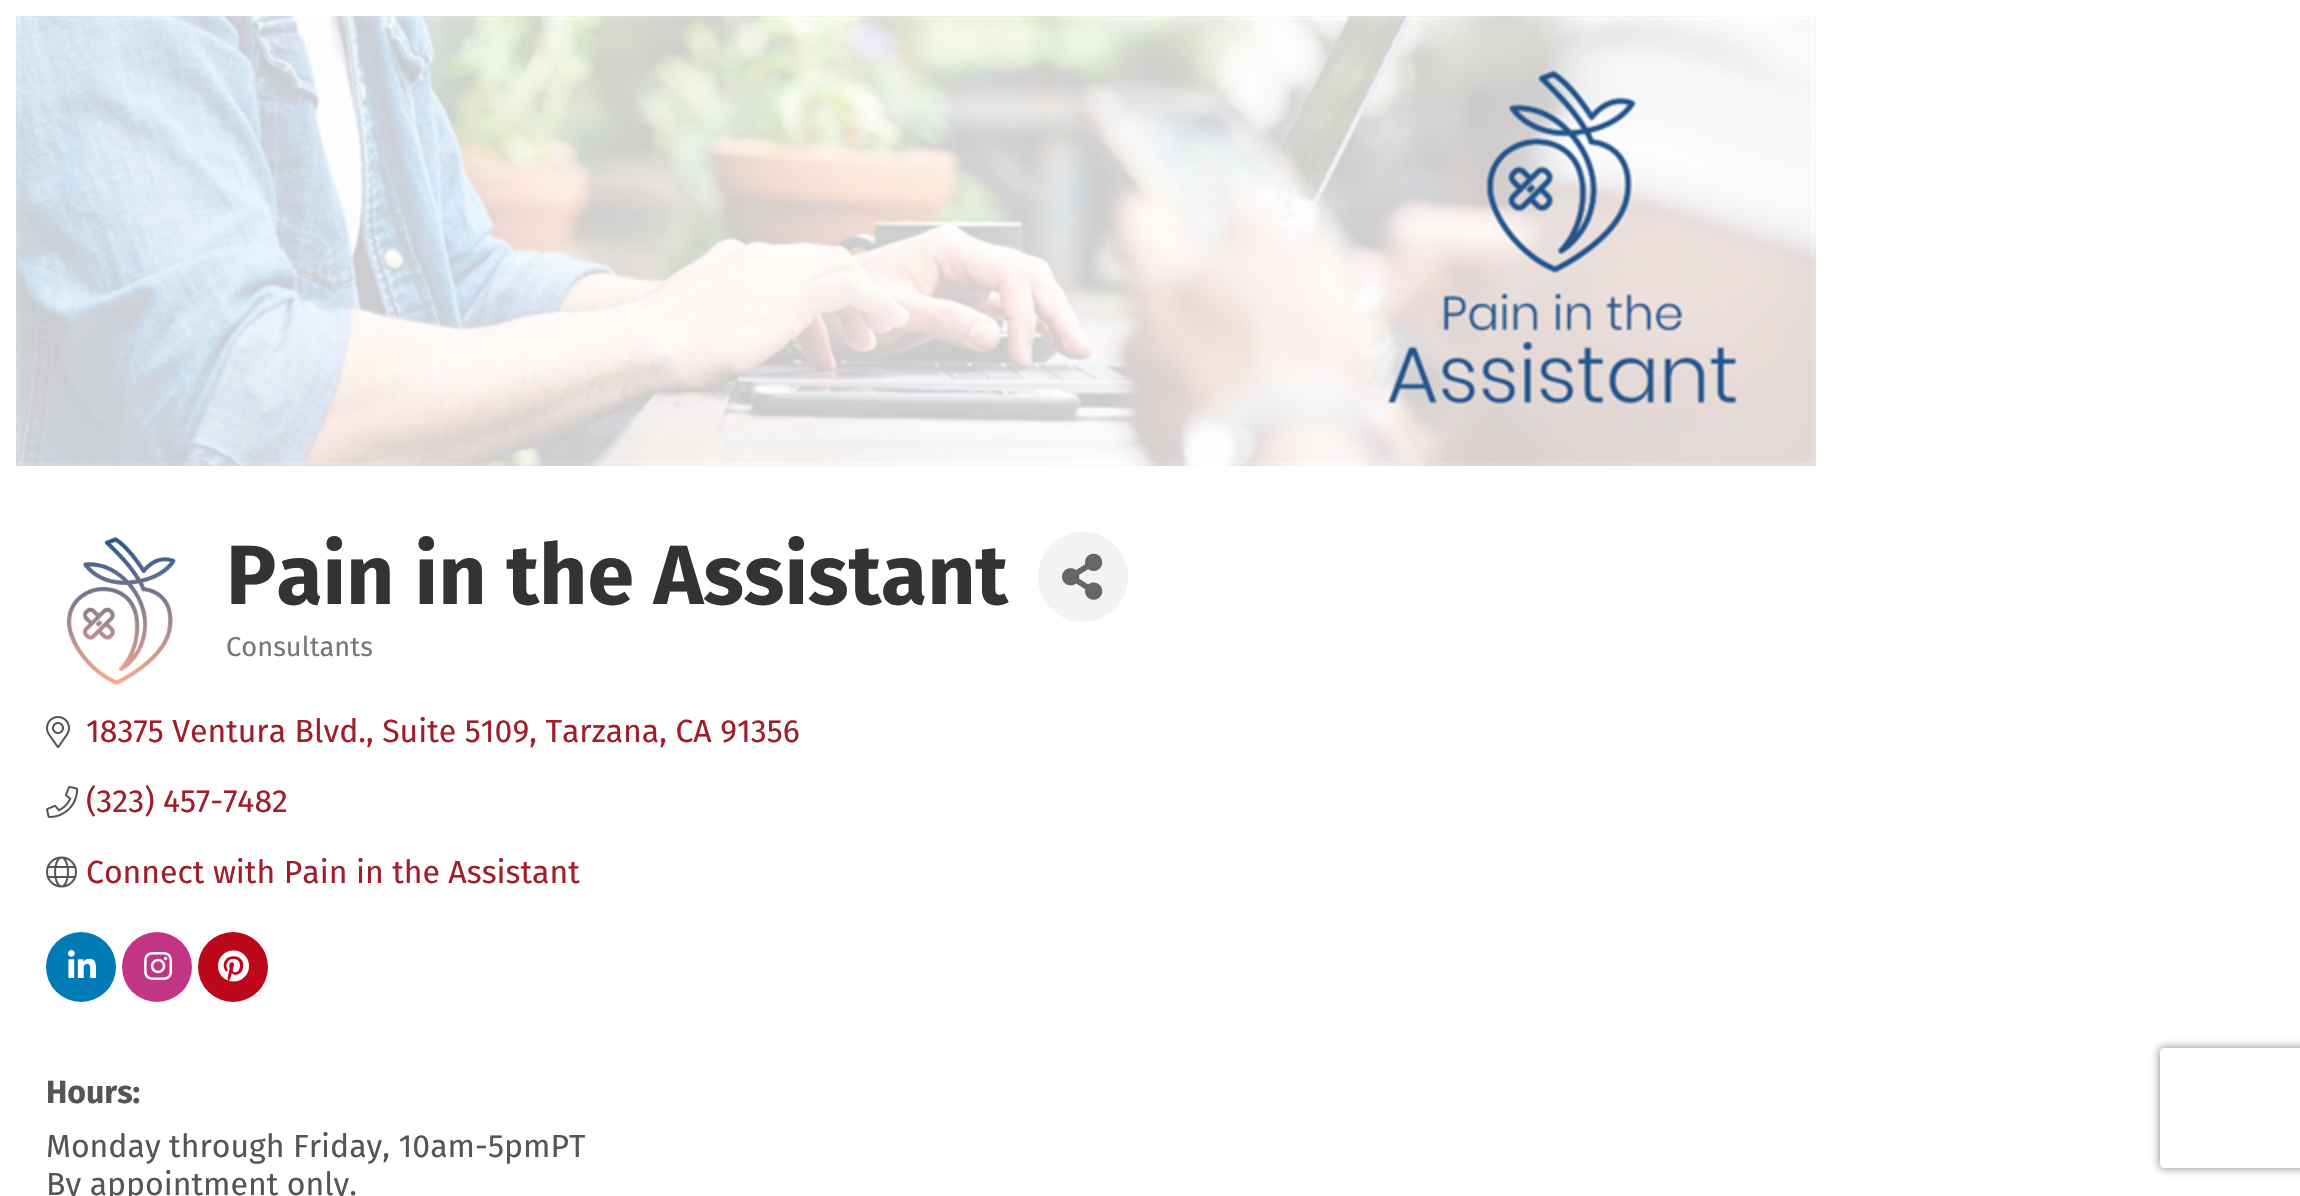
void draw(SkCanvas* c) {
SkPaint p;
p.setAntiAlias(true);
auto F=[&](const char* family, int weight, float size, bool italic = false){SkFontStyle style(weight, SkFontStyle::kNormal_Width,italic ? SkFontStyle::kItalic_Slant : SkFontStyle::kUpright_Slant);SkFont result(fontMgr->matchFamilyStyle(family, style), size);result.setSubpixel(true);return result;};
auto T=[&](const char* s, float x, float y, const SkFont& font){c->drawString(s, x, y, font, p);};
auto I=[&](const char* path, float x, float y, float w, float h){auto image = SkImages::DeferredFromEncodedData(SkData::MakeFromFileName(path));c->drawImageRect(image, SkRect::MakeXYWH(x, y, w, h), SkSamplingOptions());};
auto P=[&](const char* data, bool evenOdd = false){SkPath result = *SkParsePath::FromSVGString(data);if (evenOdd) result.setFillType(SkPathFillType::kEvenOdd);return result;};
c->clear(0xffffffff);
I("1.png",16,16,1800,450);
I("2.png",66,537,110,148);
auto f1 = F("Fira Sans",700,84);
p.setColor(0xff333333);
T("Pain in the Assistant",226,604,f1);
p.setColor(0xfff3f3f3);
c->drawCircle(1083,577,45,p);
I("3.png",1062,553,41,47);
auto f2 = F("Fira Sans",400,27.25);
p.setColor(0xff777777);
T("Consultants",226,656,f2);
I("4.png",46,716,24,32);
auto f3 = F("Fira Sans",400,32);
p.setColor(0xffa21d2a);
T("18375 Ventura Blvd., Suite 5109, Tarzana, CA 91356",86,742,f3);
I("5.png",46,786,33,32);
T("(323) 457-7482",86,812,f3);
I("6.png",46,856,31,32);
T("Connect with Pain in the Assistant",86,883,f3);
p.setColor(0xff007bb5);
c->drawCircle(81,967,35,p);
I("7.png",68,950,28,28);
p.setColor(0xffc13584);
c->drawCircle(157,967,35,p);
I("8.png",144,952,29,28);
p.setColor(0xffbd081c);
c->drawCircle(233,967,35,p);
I("9.png",218,950,31,32);
auto f4 = F("Fira Sans",700,32);
p.setColor(0xff555555);
T("Hours:",46,1103,f4);
T("Monday through Friday, 10am-5pmPT",46,1157,f3);
T("By appointment only.",46,1195,f3);
c->save();
c->clipPath(P("M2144 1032h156v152h-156zm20 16h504c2 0 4 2 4 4v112c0 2-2 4-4 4h-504c-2 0-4-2-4-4v-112c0-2 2-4 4-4z",true),true);
p.setColor(0xff808080);
p.setMaskFilter(SkMaskFilter::MakeBlur(kNormal_SkBlurStyle, 5));
c->drawRoundRect(SkRect::MakeXYWH(2160,1048,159,120),4,4,p);
p.setMaskFilter(nullptr);
c->restore();
}
